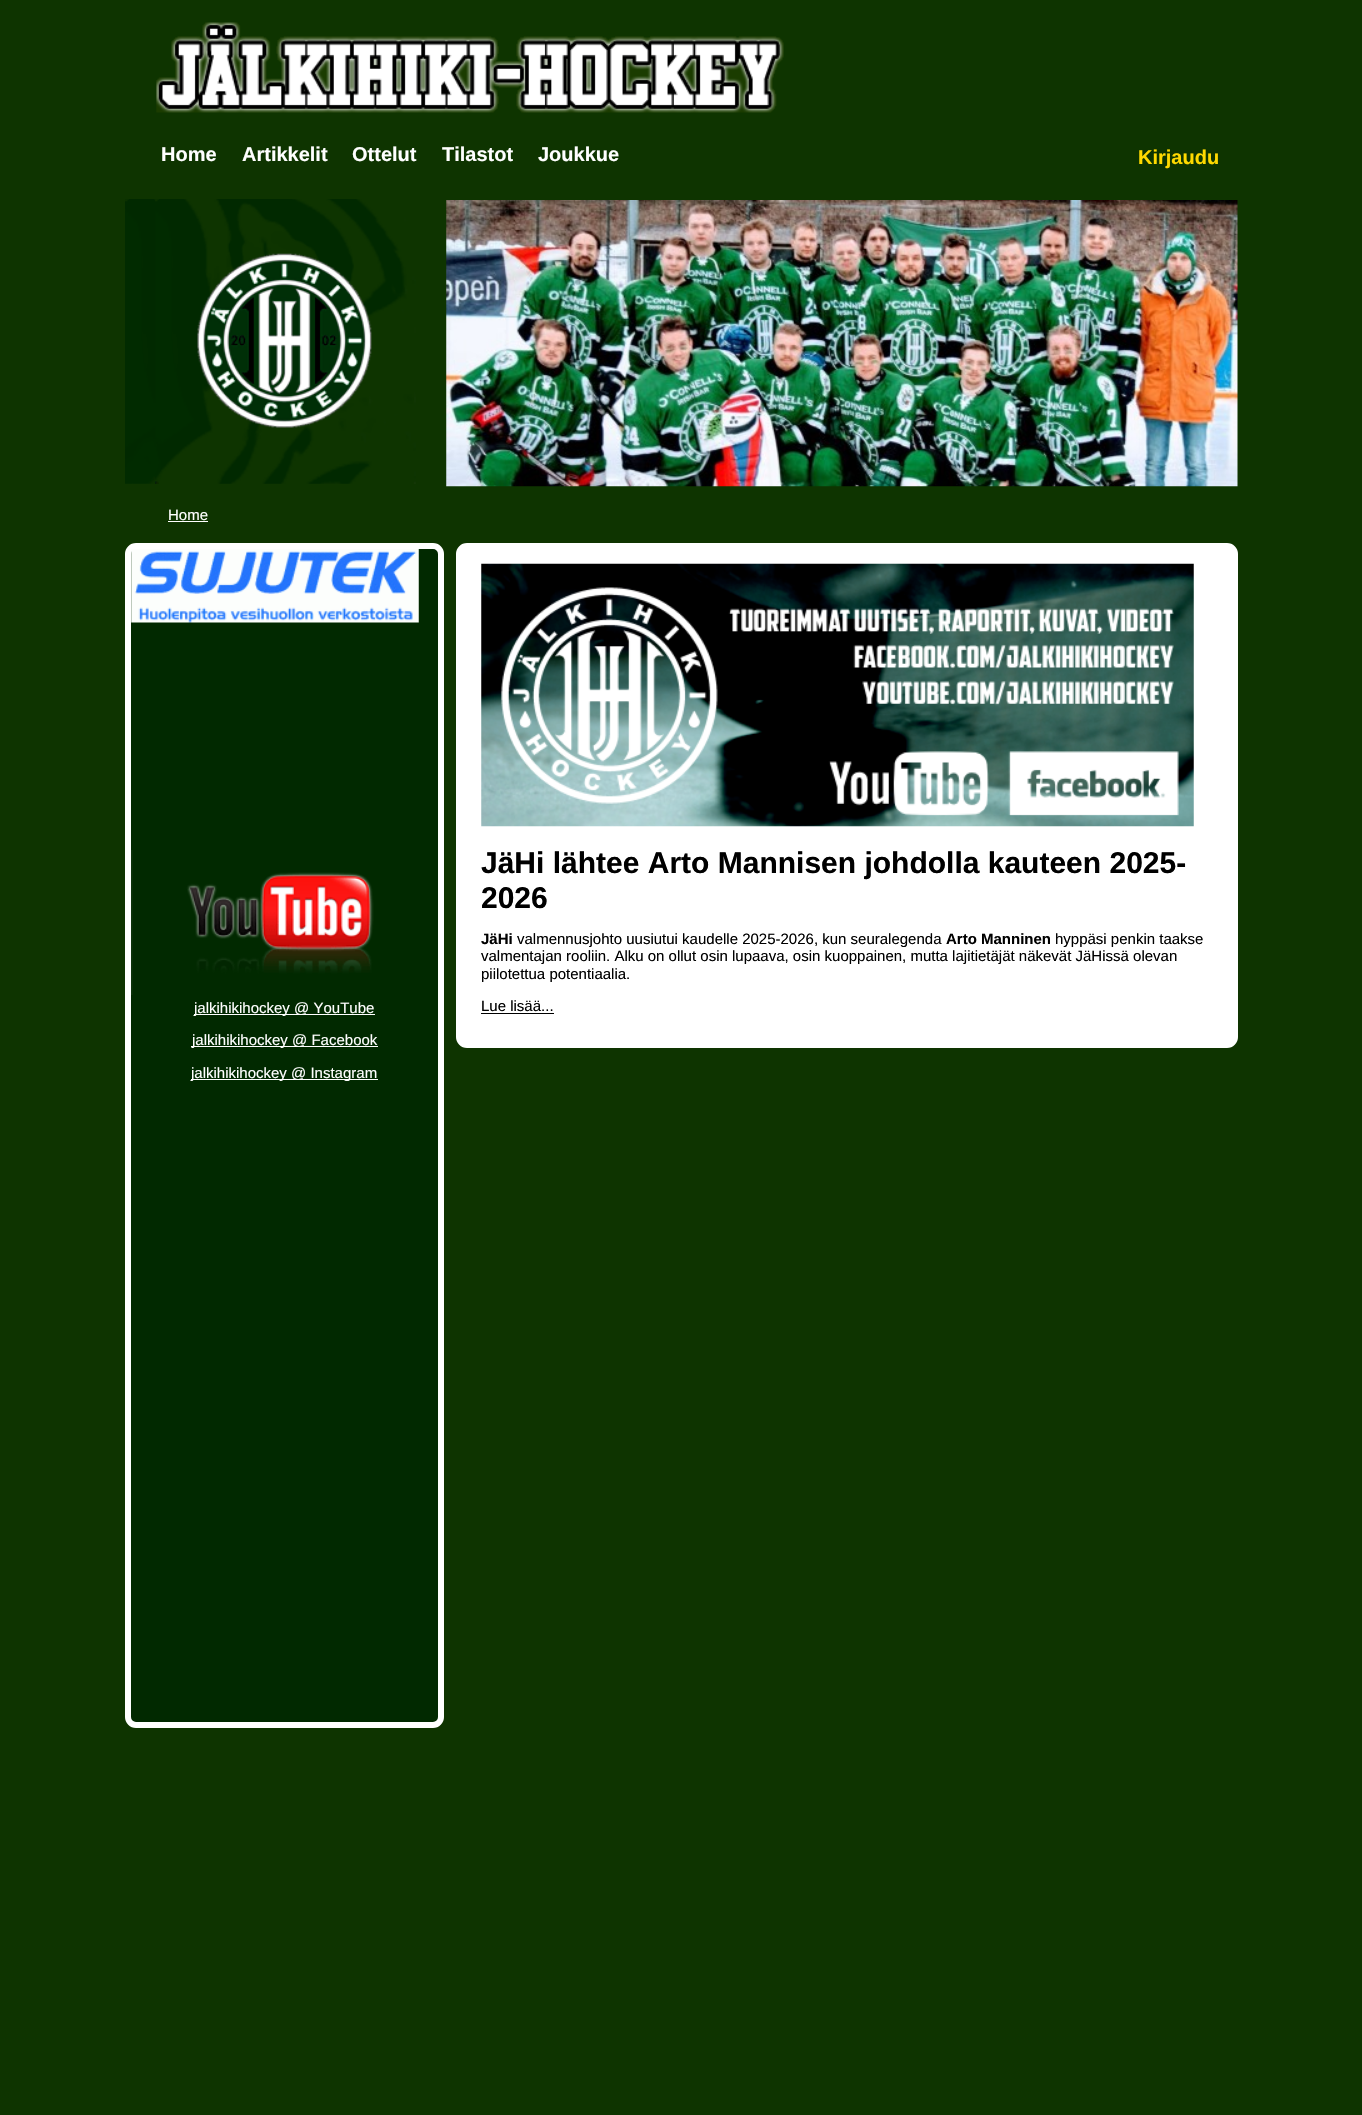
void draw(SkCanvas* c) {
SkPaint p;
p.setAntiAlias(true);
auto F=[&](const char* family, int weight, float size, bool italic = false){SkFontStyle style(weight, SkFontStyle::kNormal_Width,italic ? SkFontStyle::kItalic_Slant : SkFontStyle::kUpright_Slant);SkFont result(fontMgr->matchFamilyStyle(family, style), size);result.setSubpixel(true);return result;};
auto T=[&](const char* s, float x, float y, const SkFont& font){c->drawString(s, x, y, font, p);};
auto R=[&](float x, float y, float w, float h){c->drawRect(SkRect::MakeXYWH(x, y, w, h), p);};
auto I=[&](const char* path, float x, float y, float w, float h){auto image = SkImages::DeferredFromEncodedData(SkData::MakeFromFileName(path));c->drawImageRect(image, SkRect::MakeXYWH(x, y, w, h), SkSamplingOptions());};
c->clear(0xff0e3400);
I("1.png",156,22,628,91);
auto f1 = F("Liberation Sans",700,20);
p.setColor(0xffffffff);
T("Home",161,161,f1);
T("Artikkelit",242,161,f1);
T("Ottelut",352,161,f1);
T("Tilastot",442,161,f1);
T("Joukkue",538,161,f1);
p.setColor(0xffffd900);
T("Kirjaudu",1138,164,f1);
I("2.png",446,200,792,287);
I("3.png",125,199,291,285);
auto f2 = F("Liberation Sans",400,15);
p.setColor(0xffffffff);
T("Home",168,520,f2);
R(168,521,40,1);
c->drawRoundRect(SkRect::MakeXYWH(459,546,776,499),8,8,p);
p.setStroke(true);
p.setStrokeWidth(6);
c->drawRoundRect(SkRect::MakeXYWH(459,546,776,499),8,8,p);
I("4.png",481,563,713,264);
auto f3 = F("Liberation Sans",700,30);
p.setStroke(false);
p.setColor(0xff000000);
T("JäHi lähtee Arto Mannisen johdolla kauteen 2025-",481,873,f3);
T("2026",481,908,f3);
auto f4 = F("Liberation Sans",700,15);
T("JäHi",481,944,f4);
T("valmennusjohto uusiutui kaudelle 2025-2026, kun seuralegenda",517,944,f2);
T("Arto Manninen",946,944,f4);
T("hyppäsi penkin taakse",1055,944,f2);
T("valmentajan rooliin. Alku on ollut osin lupaava, osin kuoppainen, mutta lajitietäjät näkevät JäHissä olevan",481,961,f2);
T("piilotettua potentiaalia.",481,979,f2);
T("Lue lisää...",481,1011,f2);
R(481,1013,73,1);
p.setColor(0xff012900);
c->drawRoundRect(SkRect::MakeXYWH(128,546,313,1179),8,8,p);
p.setStroke(true);
p.setColor(0xffffffff);
c->drawRoundRect(SkRect::MakeXYWH(128,546,313,1179),8,8,p);
I("5.png",131,549,288,74);
I("6.png",131,850,243,145);
p.setStroke(false);
R(194,1014,181,1);
T("jalkihikihockey @ YouTube",194,1013,f2);
R(191,1046,187,1);
T("jalkihikihockey @ Facebook",192,1045,f2);
R(191,1079,187,1);
T("jalkihikihockey @ Instagram",191,1078,f2);
}
